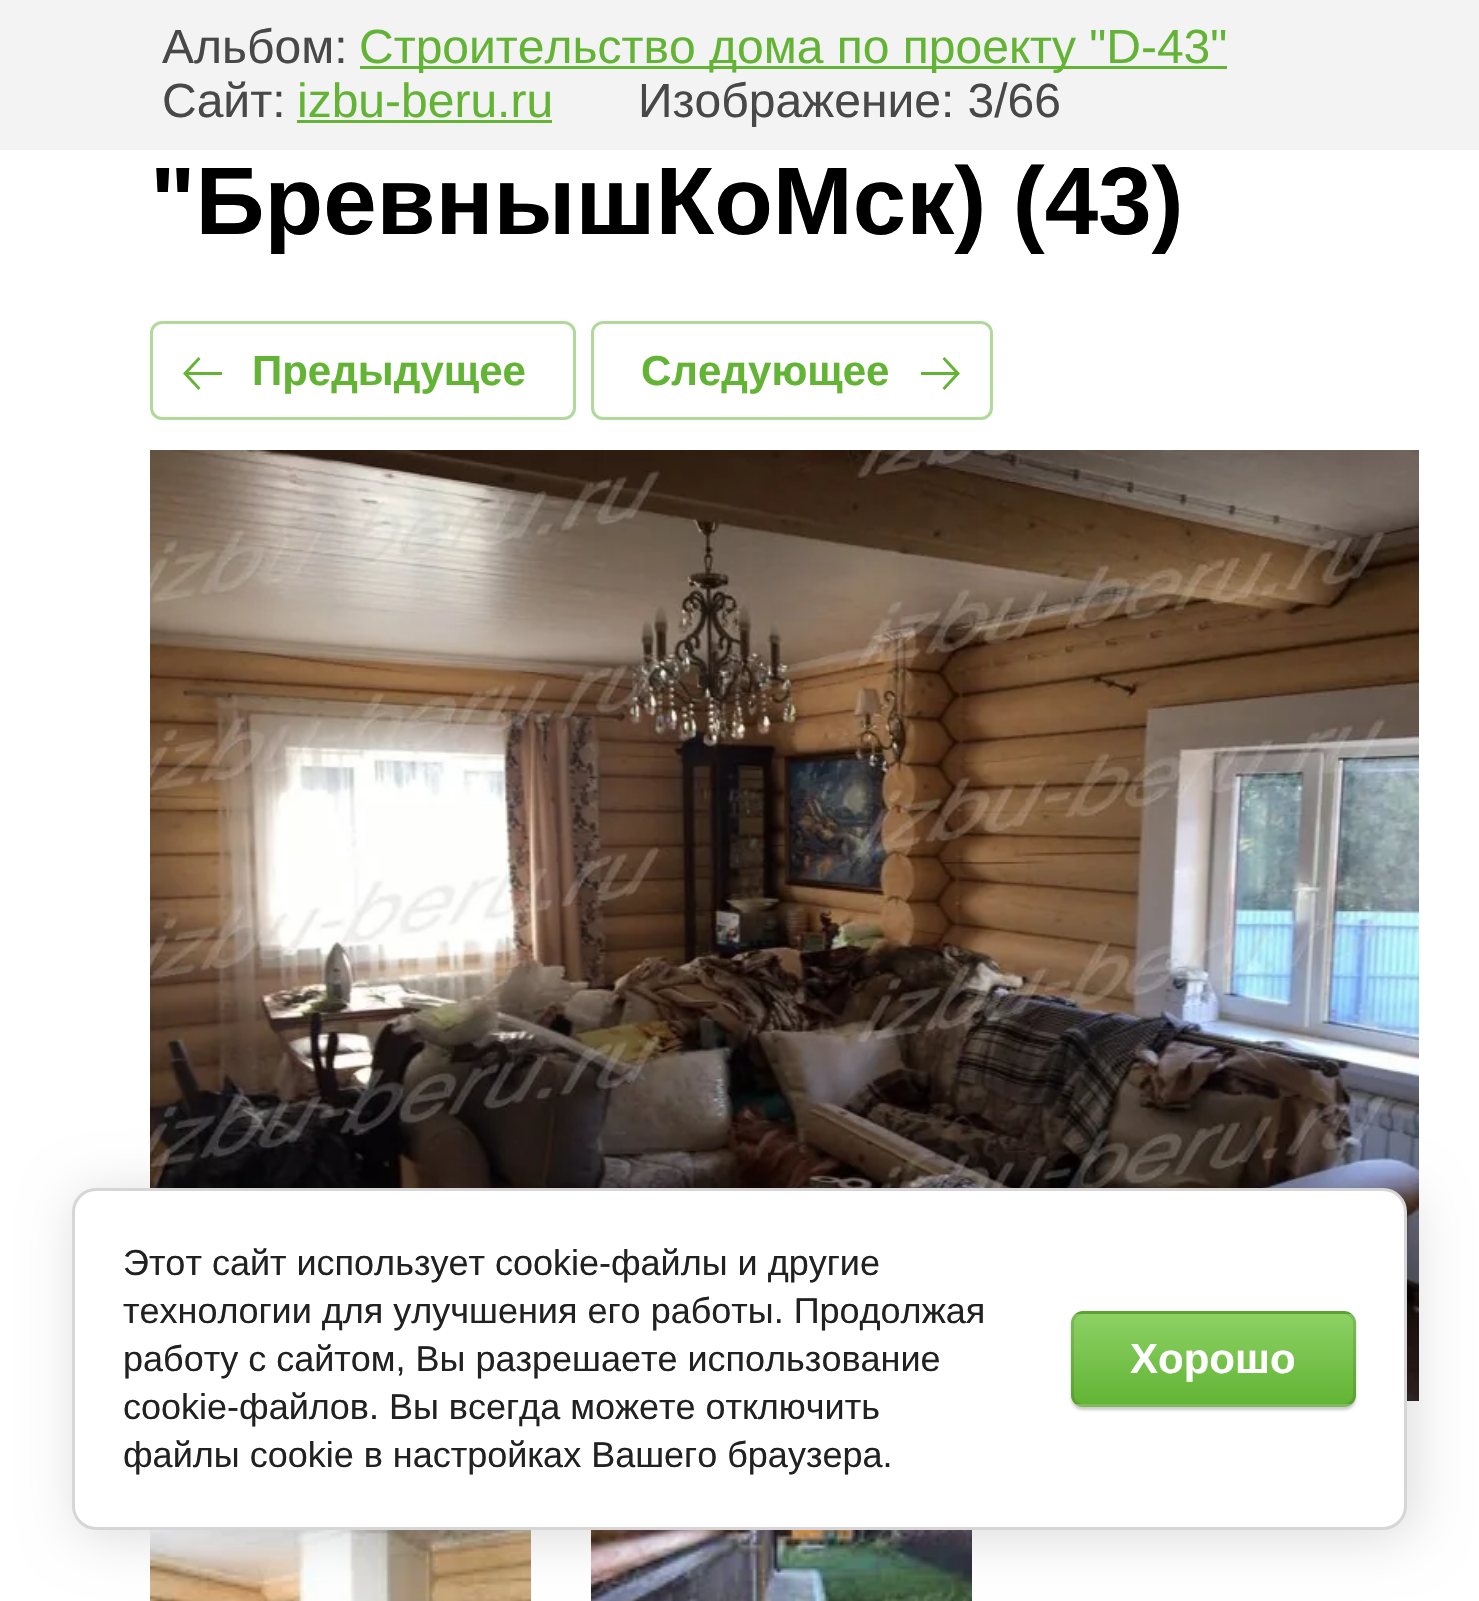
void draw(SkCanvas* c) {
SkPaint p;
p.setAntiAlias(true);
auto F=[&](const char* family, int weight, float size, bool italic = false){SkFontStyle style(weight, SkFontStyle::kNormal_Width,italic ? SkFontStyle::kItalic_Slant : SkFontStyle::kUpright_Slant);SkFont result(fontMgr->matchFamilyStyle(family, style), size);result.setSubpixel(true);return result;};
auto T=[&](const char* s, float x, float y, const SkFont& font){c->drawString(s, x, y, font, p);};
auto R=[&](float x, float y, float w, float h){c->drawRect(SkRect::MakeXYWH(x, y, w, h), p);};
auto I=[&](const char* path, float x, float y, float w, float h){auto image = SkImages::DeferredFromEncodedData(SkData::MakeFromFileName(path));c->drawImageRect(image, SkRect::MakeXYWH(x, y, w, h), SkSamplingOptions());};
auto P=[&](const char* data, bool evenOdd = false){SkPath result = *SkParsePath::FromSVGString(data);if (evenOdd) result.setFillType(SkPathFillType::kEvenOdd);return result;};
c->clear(0xffffffff);
p.setColor(0xfff3f3f3);
R(0,0,1479,150);
auto f1 = F("Liberation Sans",400,48);
p.setColor(0xff484848);
T("Альбом:",162,63,f1);
p.setColor(0xff63b435);
R(360,66,867,3);
T("Строительство дома по проекту \"D-43\"",359,63,f1);
p.setColor(0xff484848);
T("Сайт:",162,117,f1);
p.setColor(0xff63b435);
T("izbu-beru.ru",297,117,f1);
R(297,120,255,3);
p.setColor(0xff484848);
T("Изображение: 3/66",638,117,f1);
auto f2 = F("Liberation Sans",700,96);
p.setColor(0xff000000);
T("\"БревнышКоМск) (43)",150,234,f2);
p.setStroke(true);
p.setStrokeWidth(3);
p.setColor(0xffb1da9a);
c->drawRoundRect(SkRect::MakeXYWH(151.5,322.5,423,96),10.5,10.5,p);
p.setStroke(false);
p.setColor(0xff63b435);
c->drawPath(P("M200.5 359l-2-2l-15.5 16.5l15.5 16.5l2-2l-12-13h33.5v-3h-33.5z"),p);
auto f3 = F("Liberation Sans",700,42);
T("Предыдущее",252,385,f3);
p.setStroke(true);
p.setColor(0xffb1da9a);
c->drawRoundRect(SkRect::MakeXYWH(592.5,322.5,399,96),10.5,10.5,p);
p.setStroke(false);
p.setColor(0xff63b435);
T("Следующее",641,385,f3);
c->drawPath(P("M942.5 359l2-2l15.5 16.5l-15.5 16.5l-2-2l12-13h-33.5v-3h33.5z"),p);
I("1.png",150,450,1269,951);
I("2.png",150,1530,381,71);
I("3.png",591,1530,381,71);
p.setColor(0x24000000);
p.setMaskFilter(SkMaskFilter::MakeBlur(kNormal_SkBlurStyle, 27));
c->drawRoundRect(SkRect::MakeXYWH(78,1194,1335,342),24,24,p);
p.setMaskFilter(nullptr);
p.setColor(0xffffffff);
c->drawRoundRect(SkRect::MakeXYWH(73.5,1189.5,1332,339),22.5,22.5,p);
p.setStroke(true);
p.setColor(0xffd6d6d6);
c->drawRoundRect(SkRect::MakeXYWH(73.5,1189.5,1332,339),22.5,22.5,p);
auto f4 = F("Liberation Sans",400,36);
p.setStroke(false);
p.setColor(0xff212121);
T("Этот сайт использует cookie-файлы и другие",123,1275,f4);
T("технологии для улучшения его работы. Продолжая",123,1323,f4);
T("работу с сайтом, Вы разрешаете использование",123,1371,f4);
T("cookie-файлов. Вы всегда можете отключить",123,1419,f4);
T("файлы cookie в настройках Вашего браузера.",123,1467,f4);
p.setColor(0x33000000);
p.setMaskFilter(SkMaskFilter::MakeBlur(kNormal_SkBlurStyle, 1.5));
c->drawRoundRect(SkRect::MakeXYWH(1071,1314,285,96),12,12,p);
p.setMaskFilter(nullptr);
c->save();
c->clipPath(P("M1083 1311h261c6.5 0 12 5.5 12 12v72c0 6.5-5.5 12-12 12h-261c-6.5 0-12-5.5-12-12v-72c0-6.5 5.5-12 12-12z"),true);
{
const SkColor colors[] = {0xff8cd164,0xff63b435};
const float stops[] = {0,1};
const SkPoint ends[] = {{1214,1224}, {1214,1314}};
p.setShader(SkGradientShader::MakeLinear(ends, colors, stops, 2, SkTileMode::kClamp));
p.setAlpha(255);
}
R(1071,1311,285,3);
{
const SkColor colors[] = {0xff8cd164,0xff63b435};
const float stops[] = {0,1};
const SkPoint ends[] = {{1214,1314}, {1214,1404}};
p.setShader(SkGradientShader::MakeLinear(ends, colors, stops, 2, SkTileMode::kClamp));
p.setAlpha(255);
}
R(1071,1314,285,90);
{
const SkColor colors[] = {0xff8cd164,0xff63b435};
const float stops[] = {0,1};
const SkPoint ends[] = {{1214,1404}, {1214,1494}};
p.setShader(SkGradientShader::MakeLinear(ends, colors, stops, 2, SkTileMode::kClamp));
p.setAlpha(255);
}
R(1071,1404,285,3);
c->restore();
p.setStroke(true);
p.setShader(nullptr);
p.setColor(0x1a000000);
c->drawRoundRect(SkRect::MakeXYWH(1072.5,1312.5,282,93),10.5,10.5,p);
p.setStroke(false);
p.setColor(0xffffffff);
T("Хорошо",1130,1373,f3);
}
